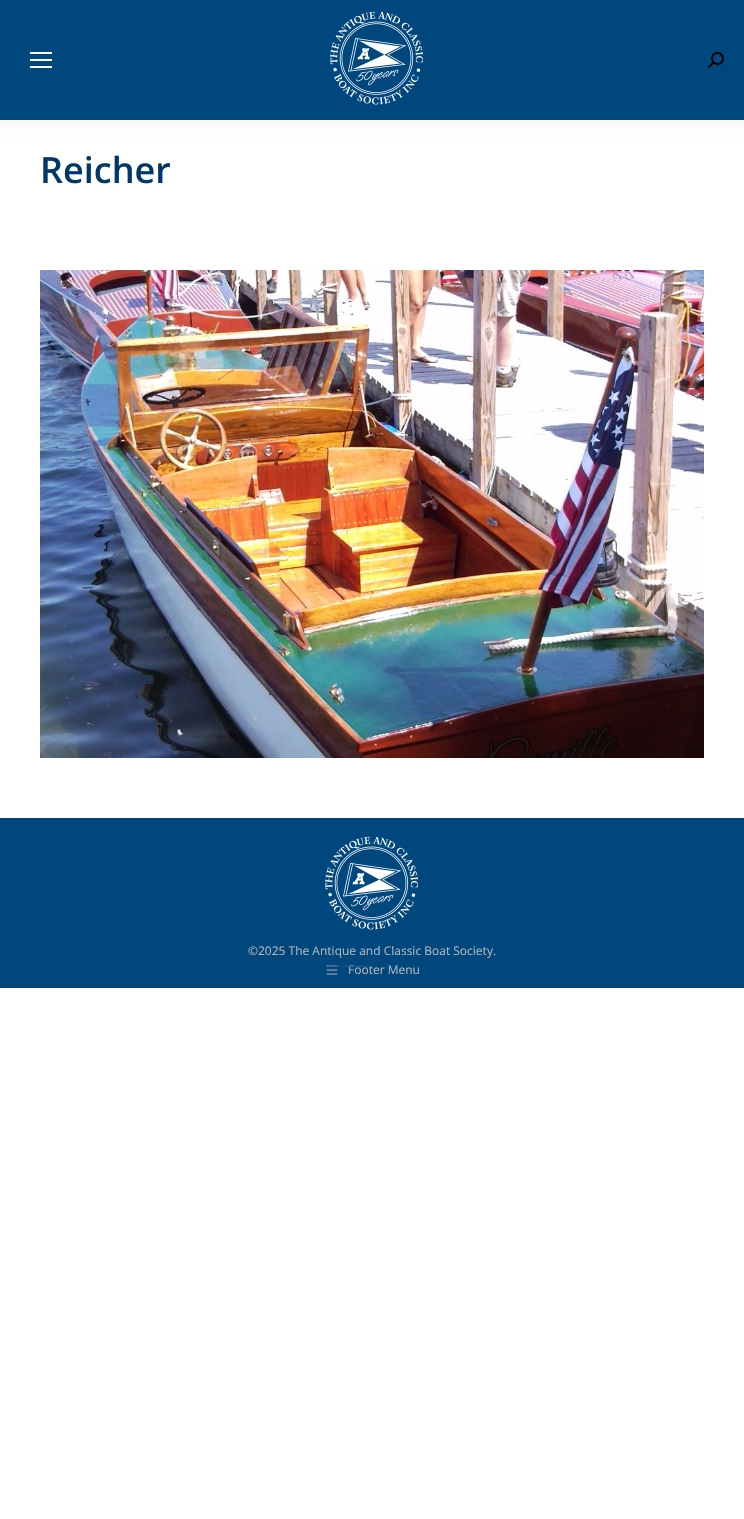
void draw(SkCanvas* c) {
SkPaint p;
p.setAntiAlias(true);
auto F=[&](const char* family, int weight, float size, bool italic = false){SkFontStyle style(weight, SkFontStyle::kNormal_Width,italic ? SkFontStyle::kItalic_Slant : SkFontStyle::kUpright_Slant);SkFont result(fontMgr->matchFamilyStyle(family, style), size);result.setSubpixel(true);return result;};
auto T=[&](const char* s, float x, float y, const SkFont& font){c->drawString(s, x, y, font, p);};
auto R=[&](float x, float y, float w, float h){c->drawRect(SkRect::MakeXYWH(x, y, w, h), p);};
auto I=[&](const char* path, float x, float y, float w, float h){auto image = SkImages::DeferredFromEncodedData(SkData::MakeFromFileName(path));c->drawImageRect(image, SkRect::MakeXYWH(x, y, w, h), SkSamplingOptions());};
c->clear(0xffffffff);
p.setColor(0x12000000);
p.setMaskFilter(SkMaskFilter::MakeBlur(kNormal_SkBlurStyle, 7.5));
c->drawRect(SkRect::MakeXYWH(-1,-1,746,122),p);
p.setMaskFilter(nullptr);
p.setColor(0xff00477e);
R(0,0,744,120);
p.setColor(0xffffffff);
R(30,52,22,2);
R(30,59,22,2);
R(30,66,22,2);
I("1.png",330,11,93,94);
I("2.png",708,52,16,16);
auto f1 = F("Open Sans",600,36);
p.setColor(0xff00386b);
T("Reicher",40,183,f1);
I("3.png",40,270,664,488);
p.setColor(0xff00477e);
R(0,818,744,170);
I("1.png",325,836,93,94);
auto f2 = F("Open Sans",400,12);
p.setColor(0xffb3b5b6);
T("©2025 The Antique and Classic Boat Society.",248,955,f2);
I("4.png",326,965,12,10);
T("Footer Menu",348,974,f2);
auto f3 = F("Open Sans",400,14);
p.setColor(0xff205b88);
T("———",327,970,f3);
}
